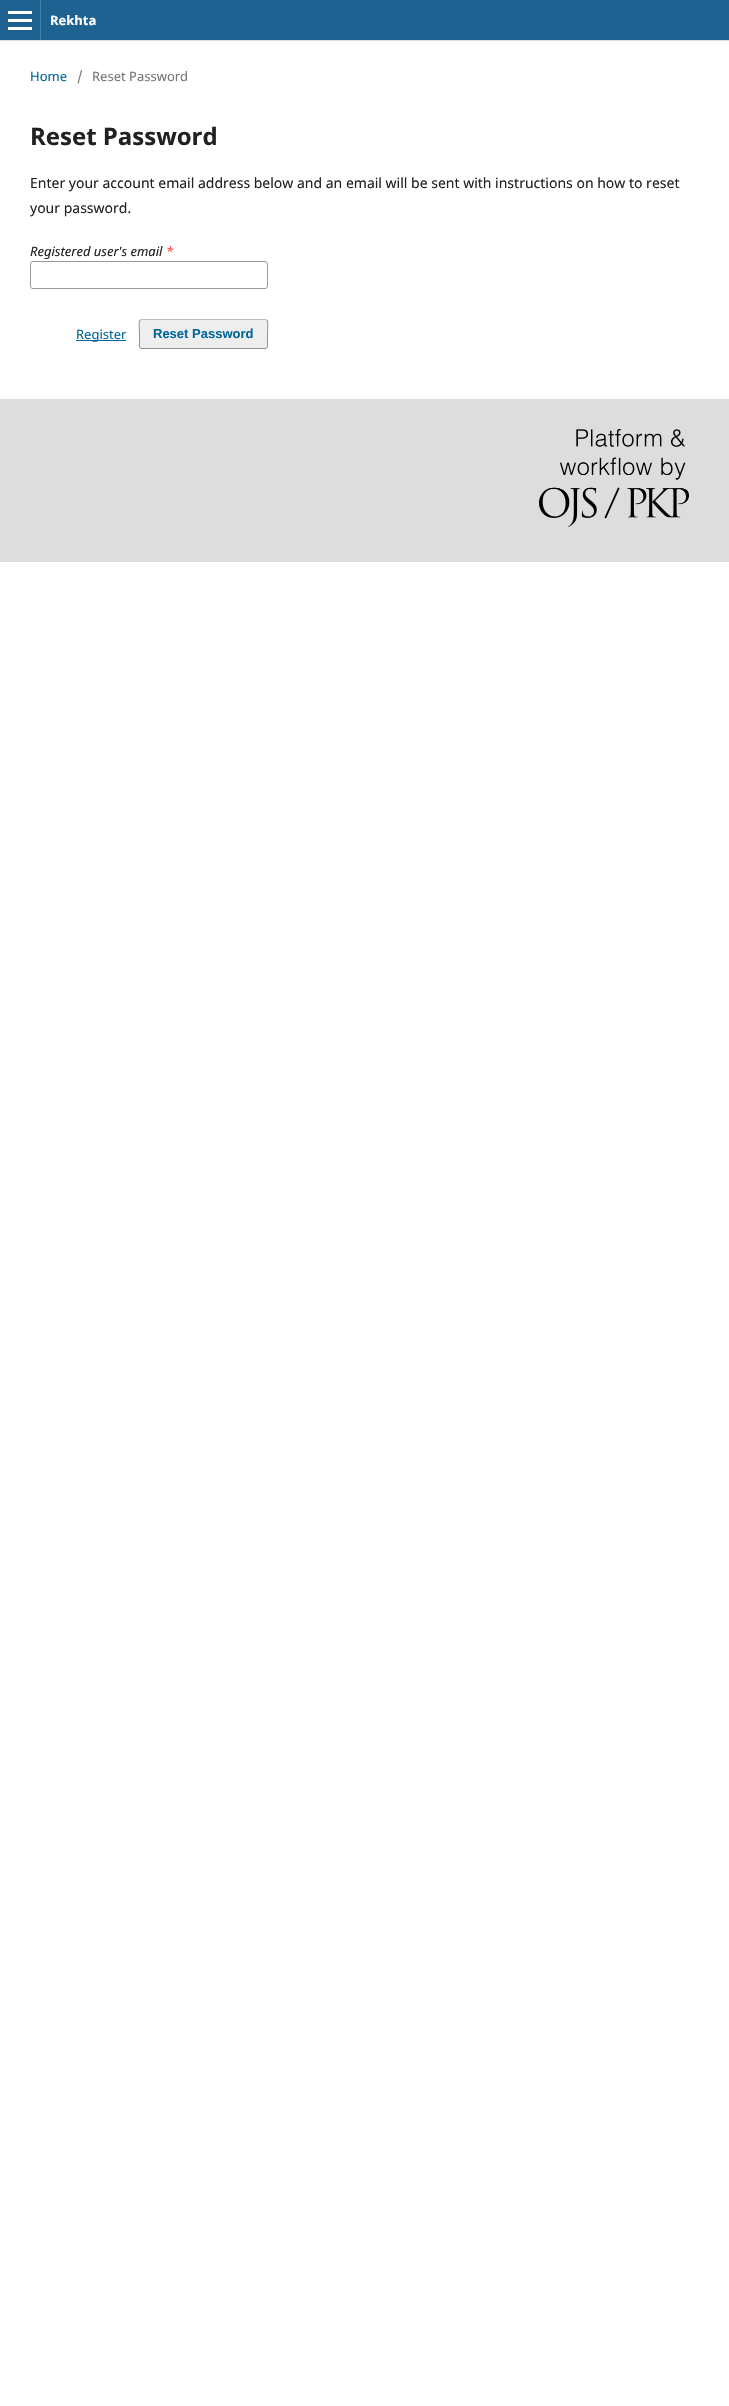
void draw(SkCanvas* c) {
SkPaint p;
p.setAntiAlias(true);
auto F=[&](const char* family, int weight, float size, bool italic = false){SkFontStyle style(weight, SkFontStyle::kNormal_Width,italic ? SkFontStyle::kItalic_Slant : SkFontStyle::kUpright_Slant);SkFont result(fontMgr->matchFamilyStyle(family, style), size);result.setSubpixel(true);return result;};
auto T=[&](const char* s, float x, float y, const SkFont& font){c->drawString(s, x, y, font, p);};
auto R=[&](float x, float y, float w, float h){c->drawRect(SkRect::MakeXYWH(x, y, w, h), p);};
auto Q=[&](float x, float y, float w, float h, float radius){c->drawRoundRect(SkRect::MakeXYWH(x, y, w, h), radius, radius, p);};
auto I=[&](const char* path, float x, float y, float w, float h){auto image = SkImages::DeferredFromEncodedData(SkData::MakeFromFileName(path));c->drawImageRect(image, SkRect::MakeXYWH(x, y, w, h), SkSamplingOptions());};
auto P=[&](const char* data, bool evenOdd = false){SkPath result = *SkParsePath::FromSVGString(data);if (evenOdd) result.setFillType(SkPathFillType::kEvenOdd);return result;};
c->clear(0xffffffff);
p.setColor(0xff1e6292);
R(0,0,729,40);
p.setColor(0xffdddddd);
R(0,40,729,1);
p.setColor(0xff4b81a8);
R(40,0,1,40);
p.setColor(0xffffffff);
R(8,27,24,3);
R(8,11,24,3);
R(8,19,24,3);
auto f1 = F("Noto Sans",700,13);
T("Rekhta",50,25,f1);
auto f2 = F("Noto Sans",400,13);
p.setColor(0xff006798);
T("Home",30,81,f2);
p.setColor(0xff757575);
T("/",77,81,f2);
T("Reset Password",92,81,f2);
auto f3 = F("Noto Sans",700,24);
p.setColor(0xff212121);
T("Reset Password",30,145,f3);
auto f4 = F("Noto Sans",400,14);
T("Enter your account email address below and an email will be sent with instructions on how to reset",30,188,f4);
T("your password.",30,213,f4);
auto f5 = F("Noto Sans",400,13,true);
T("Registered user's email",30,256,f5);
p.setColor(0xffff4040);
T("*",166,256,f5);
p.setStroke(true);
p.setStrokeWidth(1);
p.setColor(0xff999999);
c->drawRoundRect(SkRect::MakeXYWH(30.5,261.5,237,27),2.5,2.5,p);
p.setStroke(false);
p.setColor(0xff006798);
R(76,340,50,1);
T("Register",76,339,f2);
p.setColor(0xffeeeeee);
Q(139,319,129,30,3);
p.setStroke(true);
p.setColor(0xffbbbbbb);
c->drawPath(P("M140 320l2-.5h102.5h20.5l2 .5"),p);
p.setColor(0x66000000);
c->drawPath(P("M267 320c1.5 2 .5 11.5 .5 14v8c0 2 1 6.5-2.5 6.5h-123c-3.5 0-2.5-4.5-2.5-6.5v-8c0-2.5-1-12 .5-14"),p);
auto f6 = F("Liberation Sans",700,13);
p.setStroke(false);
p.setColor(0xff006798);
T("Reset Password",153,338,f6);
p.setColor(0xffdddddd);
R(0,399,729,163);
I("1.png",539,429,150,98);
}
